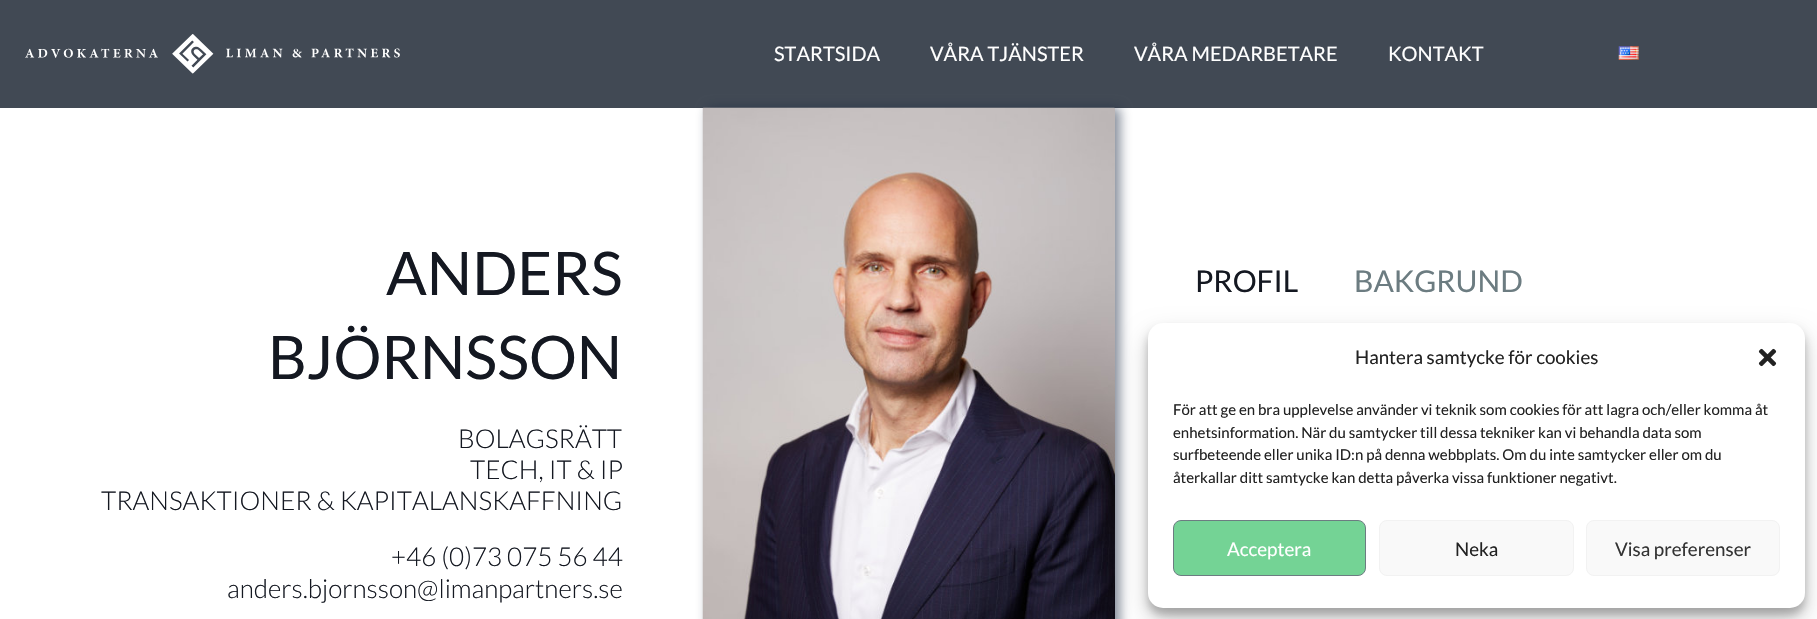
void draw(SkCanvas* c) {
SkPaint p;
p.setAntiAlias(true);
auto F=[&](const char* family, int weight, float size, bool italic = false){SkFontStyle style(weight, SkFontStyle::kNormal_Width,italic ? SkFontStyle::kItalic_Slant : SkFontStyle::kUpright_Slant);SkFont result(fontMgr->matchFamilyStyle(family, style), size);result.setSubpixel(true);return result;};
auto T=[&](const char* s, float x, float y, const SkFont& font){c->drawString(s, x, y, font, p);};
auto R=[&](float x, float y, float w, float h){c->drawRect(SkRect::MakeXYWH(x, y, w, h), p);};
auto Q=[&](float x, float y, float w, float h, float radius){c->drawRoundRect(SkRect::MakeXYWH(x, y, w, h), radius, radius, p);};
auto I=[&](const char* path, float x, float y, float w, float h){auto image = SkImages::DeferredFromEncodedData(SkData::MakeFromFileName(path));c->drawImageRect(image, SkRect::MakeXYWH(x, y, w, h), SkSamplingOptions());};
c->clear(0xffffffff);
p.setColor(0xff414954);
R(0,0,1817,108);
I("1.png",25,34,375,40);
auto f1 = F("Lato",400,20);
p.setColor(0xffffffff);
T("STARTSIDA",774,61,f1);
T("VÅRA TJÄNSTER",930,61,f1);
T("VÅRA MEDARBETARE",1134,61,f1);
T("KONTAKT",1388,61,f1);
I("2.png",1618,46,21,14);
auto f2 = F("Lato",400,60);
p.setColor(0xff141821);
T("ANDERS",386,295,f2);
T("BJÖRNSSON",268,379,f2);
auto f3 = F("Lato",300,26);
T("BOLAGSRÄTT",458,448,f3);
T("TECH, IT & IP",470,479,f3);
T("TRANSAKTIONER & KAPITALANSKAFFNING",101,510,f3);
T("+46 (0)73 075 56 44",391,566,f3);
T("anders.bjornsson@limanpartners.se",227,598,f3);
p.setColor(0x8c192841);
p.setMaskFilter(SkMaskFilter::MakeBlur(kNormal_SkBlurStyle, 6));
c->drawRoundRect(SkRect::MakeXYWH(708,108,412,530),1,1,p);
p.setMaskFilter(nullptr);
I("3.png",702,107,413,512);
auto f4 = F("Lato",400,30);
p.setColor(0xff141821);
T("PROFIL",1195,292,f4);
p.setColor(0xff6c7c81);
T("BAKGRUND",1354,292,f4);
p.setColor(0x3b000000);
p.setMaskFilter(SkMaskFilter::MakeBlur(kNormal_SkBlurStyle, 4));
c->drawRoundRect(SkRect::MakeXYWH(1148,330,657,285),15,15,p);
p.setMaskFilter(nullptr);
p.setColor(0x30000000);
p.setMaskFilter(SkMaskFilter::MakeBlur(kNormal_SkBlurStyle, 12.5));
c->drawRoundRect(SkRect::MakeXYWH(1148,335,657,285),15,15,p);
p.setMaskFilter(nullptr);
p.setColor(0xffffffff);
Q(1148,323,657,285,15);
auto f5 = F("Lato",400,18.75);
p.setColor(0xff222222);
T("Hantera samtycke för cookies",1355,364,f5);
I("4.png",1758,348,19,19);
auto f6 = F("Lato",400,15);
T("För att ge en bra upplevelse använder vi teknik som cookies för att lagra och/eller komma åt",1173,415,f6);
T("enhetsinformation. När du samtycker till dessa tekniker kan vi behandla data som",1173,438,f6);
T("surfbeteende eller unika ID:n på denna webbplats. Om du inte samtycker eller om du",1173,460,f6);
T("återkallar ditt samtycke kan detta påverka vissa funktioner negativt.",1173,483,f6);
p.setColor(0xff74d395);
c->drawRoundRect(SkRect::MakeXYWH(1173.5,520.5,192,55),7.5,7.5,p);
p.setStroke(true);
p.setStrokeWidth(1);
p.setColor(0xff6c7c81);
c->drawRoundRect(SkRect::MakeXYWH(1173.5,520.5,192,55),7.5,7.5,p);
p.setStroke(false);
p.setColor(0xffffffff);
T("Acceptera",1227,556,f5);
p.setColor(0xfff9f9f9);
c->drawRoundRect(SkRect::MakeXYWH(1379.5,520.5,194,55),7.5,7.5,p);
p.setStroke(true);
p.setColor(0xfff2f2f2);
c->drawRoundRect(SkRect::MakeXYWH(1379.5,520.5,194,55),7.5,7.5,p);
p.setStroke(false);
p.setColor(0xff222222);
T("Neka",1455,556,f5);
p.setColor(0xfff9f9f9);
c->drawRoundRect(SkRect::MakeXYWH(1586.5,520.5,193,55),7.5,7.5,p);
p.setStroke(true);
p.setColor(0xfff2f2f2);
c->drawRoundRect(SkRect::MakeXYWH(1586.5,520.5,193,55),7.5,7.5,p);
p.setStroke(false);
p.setColor(0xff333333);
T("Visa preferenser",1615,556,f5);
}
